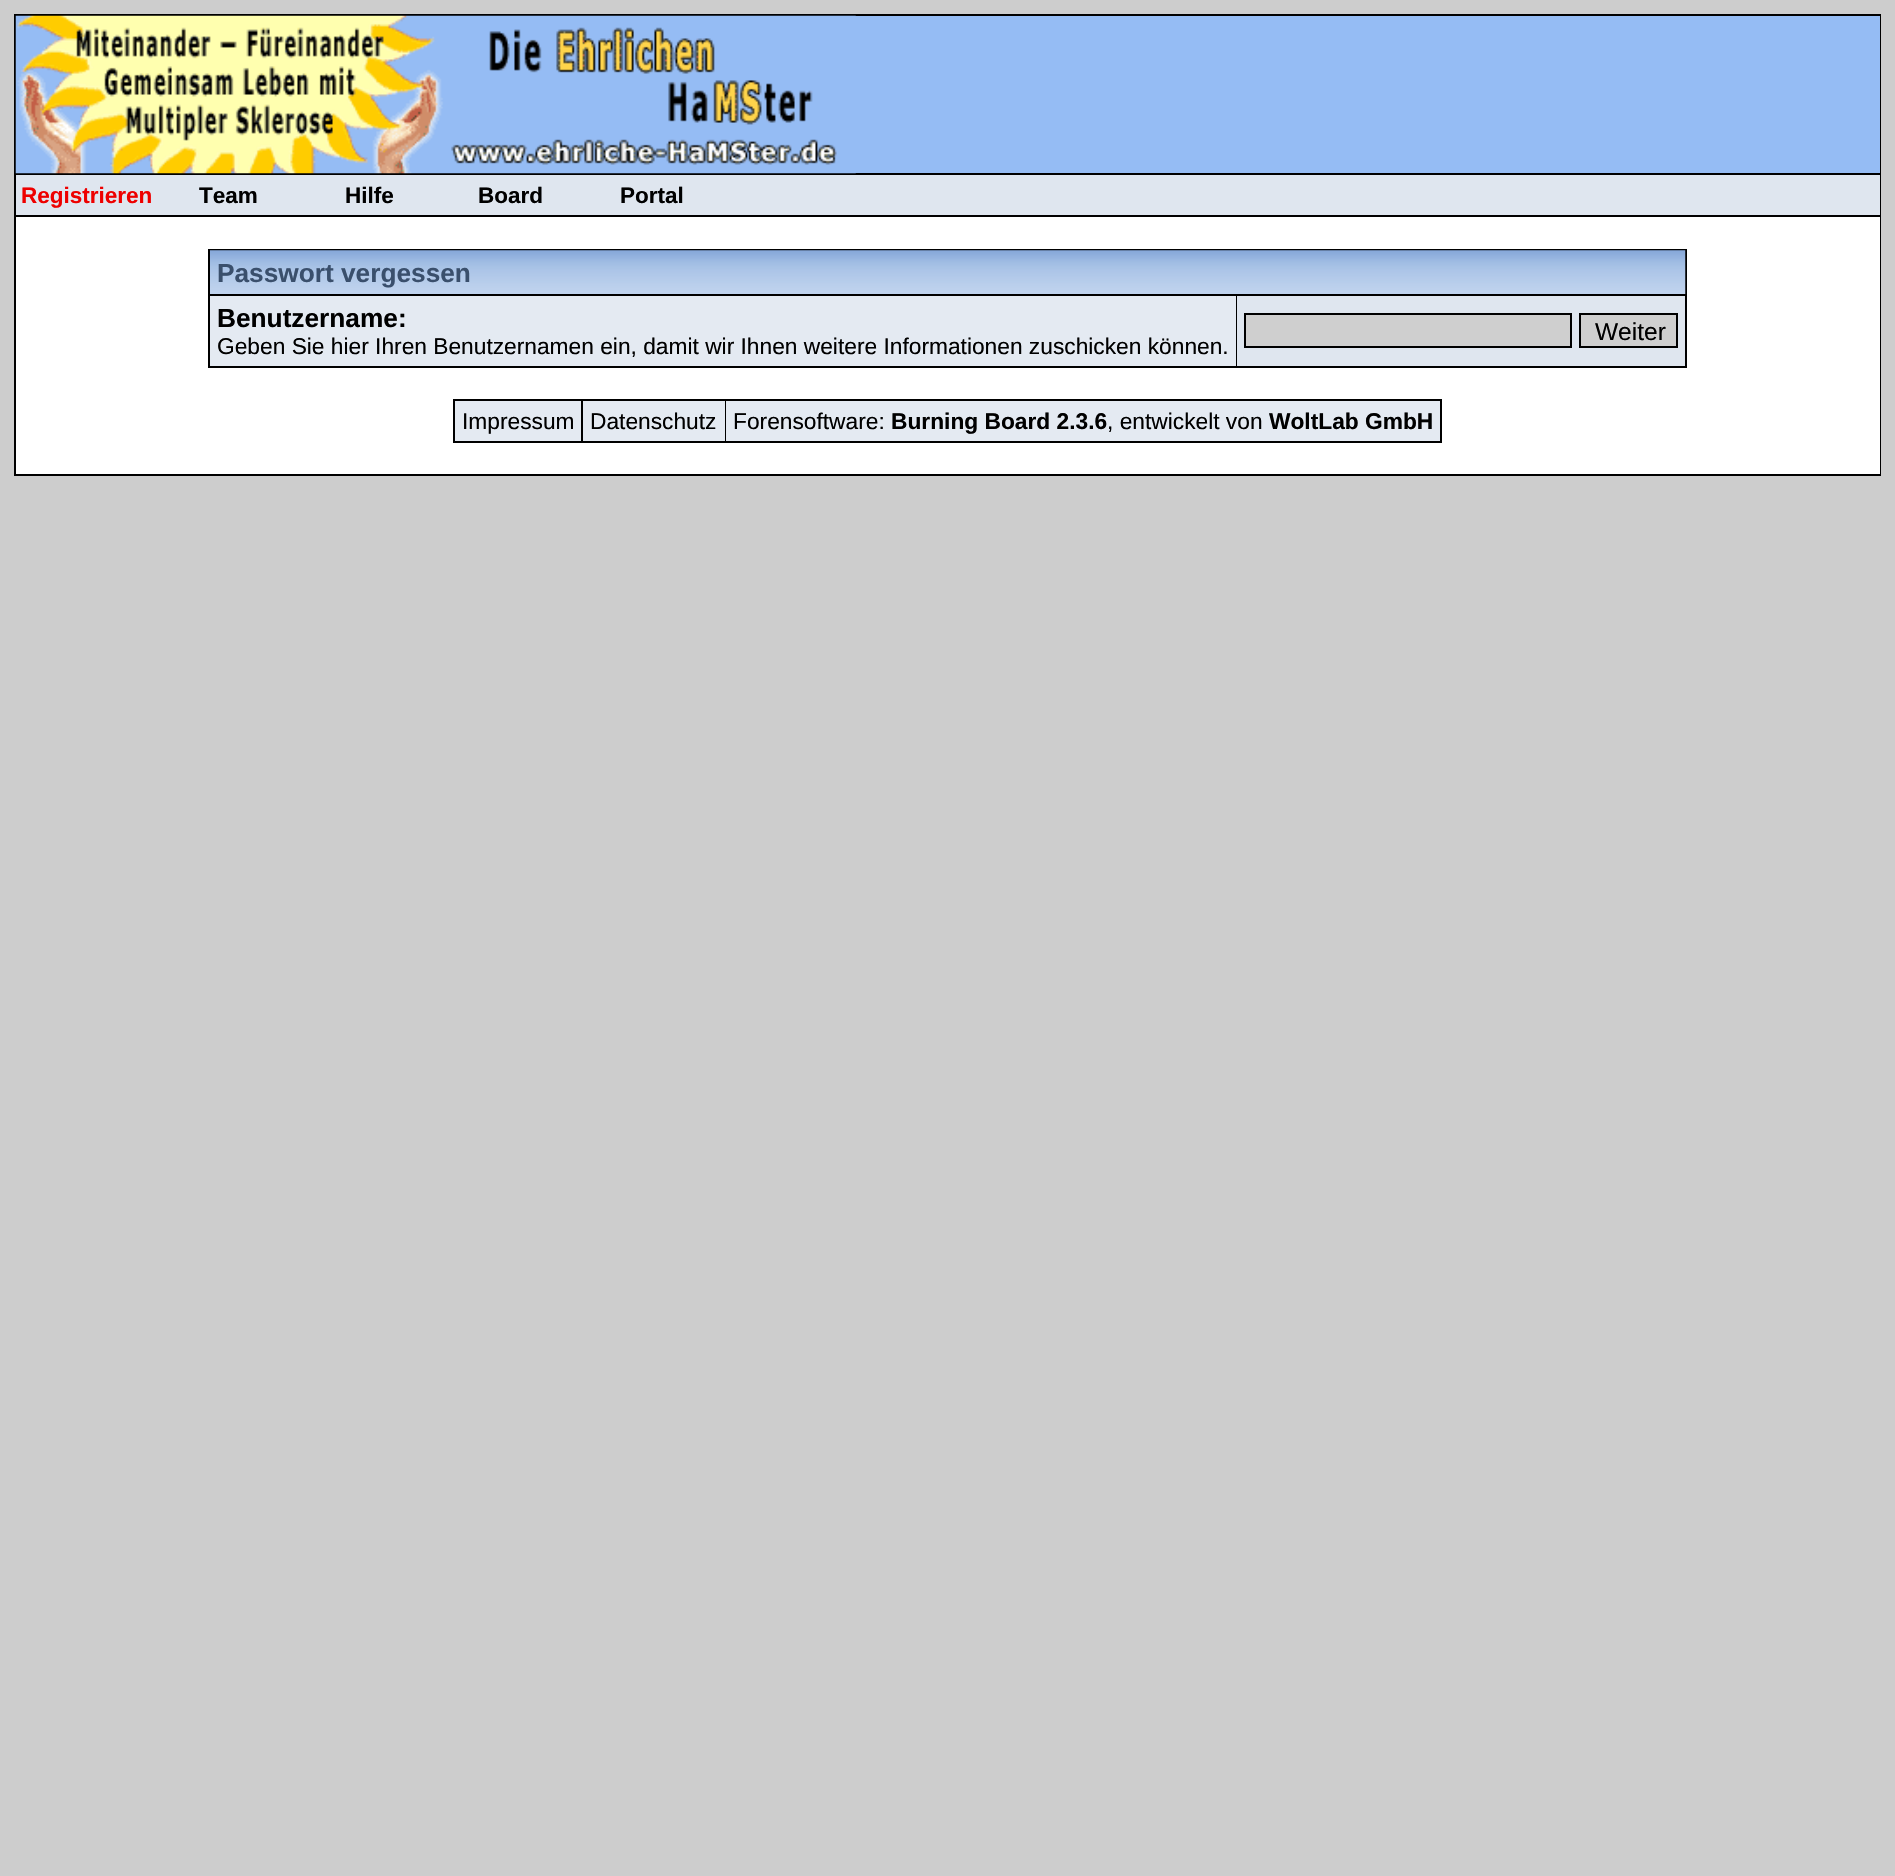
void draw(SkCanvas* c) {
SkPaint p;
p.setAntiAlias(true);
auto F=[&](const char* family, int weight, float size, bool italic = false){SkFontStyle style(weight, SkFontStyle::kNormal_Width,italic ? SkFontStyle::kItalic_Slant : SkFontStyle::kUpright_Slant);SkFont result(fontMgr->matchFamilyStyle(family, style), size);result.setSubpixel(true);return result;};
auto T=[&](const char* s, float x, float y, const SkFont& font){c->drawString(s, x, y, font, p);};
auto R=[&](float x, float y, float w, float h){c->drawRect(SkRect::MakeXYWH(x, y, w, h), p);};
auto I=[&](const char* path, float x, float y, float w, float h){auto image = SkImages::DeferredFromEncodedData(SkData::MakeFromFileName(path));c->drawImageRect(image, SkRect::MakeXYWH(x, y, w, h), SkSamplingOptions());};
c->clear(0xffcdcdcd);
p.setColor(0xff000000);
R(14,14,1867,462);
p.setColor(0xffffffff);
R(16,217,1864,257);
p.setColor(0xff95bcf4);
R(855,16,1025,157);
I("1.png",15,15,841,159);
p.setColor(0xffdfe6ef);
R(16,175,1864,40);
auto f1 = F("Liberation Sans",700,22.5);
p.setColor(0xffee0000);
T("Registrieren",21,203,f1);
p.setColor(0xff000000);
T("Team",199,203,f1);
T("Hilfe",345,203,f1);
T("Board",478,203,f1);
T("Portal",620,203,f1);
R(208,249,1479,119);
I("2.png",210,250,1476,44);
auto f2 = F("Liberation Sans",700,26.25);
p.setColor(0xff3a4f6c);
T("Passwort vergessen",217,282,f2);
p.setColor(0xffe4eaf2);
R(210,296,1026,70);
p.setColor(0xff000000);
T("Benutzername:",217,327,f2);
auto f3 = F("Liberation Sans",400,22.75);
T("Geben Sie hier Ihren Benutzernamen ein, damit wir Ihnen weitere Informationen zuschicken können.",217,354,f3);
p.setColor(0xffdfe6ef);
R(1237,296,448,70);
p.setColor(0xffcfcfcf);
c->drawRect(SkRect::MakeXYWH(1245,314,326,33),p);
p.setStroke(true);
p.setStrokeWidth(2);
p.setColor(0xff000000);
c->drawRect(SkRect::MakeXYWH(1245,314,326,33),p);
p.setStroke(false);
p.setColor(0xffcfcfcf);
c->drawRect(SkRect::MakeXYWH(1580,314,97,33),p);
p.setStroke(true);
p.setColor(0xff000000);
c->drawRect(SkRect::MakeXYWH(1580,314,97,33),p);
auto f4 = F("Liberation Sans",400,24.5);
p.setStroke(false);
T("Weiter",1595,340,f4);
R(453,399,989,44);
p.setColor(0xffe4eaf2);
R(455,401,126,40);
p.setColor(0xff000000);
T("Impressum",462,429,f3);
p.setColor(0xffe4eaf2);
R(583,401,142,40);
p.setColor(0xff000000);
T("Datenschutz",590,429,f3);
p.setColor(0xffe4eaf2);
R(726,401,714,40);
p.setColor(0xff000000);
T("Forensoftware:",733,429,f3);
auto f5 = F("Liberation Sans",700,22.75);
T("Burning Board 2.3.6",891,429,f5);
T(", entwickelt von",1107,429,f3);
T("WoltLab GmbH",1269,429,f5);
}
